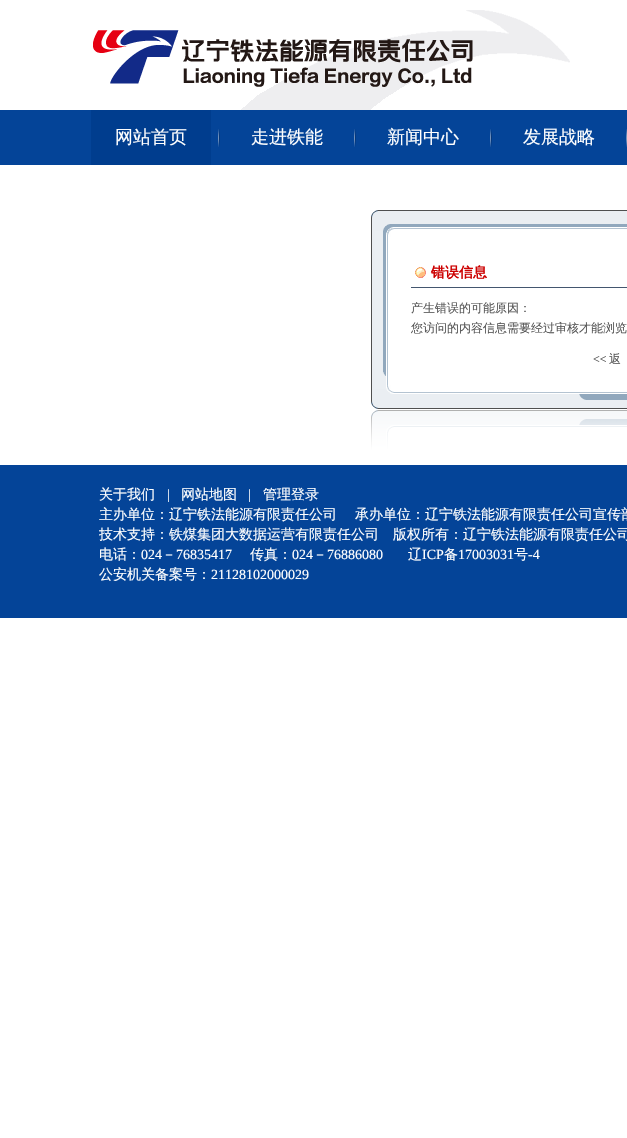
void draw(SkCanvas* c) {
SkPaint p;
p.setAntiAlias(true);
auto F=[&](const char* family, int weight, float size, bool italic = false){SkFontStyle style(weight, SkFontStyle::kNormal_Width,italic ? SkFontStyle::kItalic_Slant : SkFontStyle::kUpright_Slant);SkFont result(fontMgr->matchFamilyStyle(family, style), size);result.setSubpixel(true);return result;};
auto T=[&](const char* s, float x, float y, const SkFont& font){c->drawString(s, x, y, font, p);};
auto R=[&](float x, float y, float w, float h){c->drawRect(SkRect::MakeXYWH(x, y, w, h), p);};
auto I=[&](const char* path, float x, float y, float w, float h){auto image = SkImages::DeferredFromEncodedData(SkData::MakeFromFileName(path));c->drawImageRect(image, SkRect::MakeXYWH(x, y, w, h), SkSamplingOptions());};
c->clear(0xffffffff);
I("1.png",93,10,477,100);
p.setColor(0xff044498);
R(0,110,627,55);
p.setColor(0xff003d8e);
R(91,110,120,55);
auto f1 = F("WenQuanYi Zen Hei",500,18);
p.setColor(0xffffffff);
T("网站首页",115,143,f1);
I("2.png",218,129,2,18);
T("走进铁能",251,143,f1);
I("2.png",354,129,2,18);
T("新闻中心",387,143,f1);
I("2.png",490,129,2,18);
T("发展战略",523,143,f1);
I("3.png",626,129,1,18);
I("4.png",371,237,17,148);
I("5.png",371,210,256,27);
I("6.png",383,237,3,139);
I("7.png",415,267,11,11);
p.setColor(0xff43566f);
R(411,287,216,1);
auto f2 = F("WenQuanYi Zen Hei",700,14);
p.setColor(0xffcc0000);
T("错误信息",431,277,f2);
auto f3 = F("WenQuanYi Zen Hei",500,12);
p.setColor(0xff555555);
T("产生错误的可能原因：",411,312,f3);
T("您访问的内容信息需要经过审核才能浏览",411,332,f3);
auto f4 = F("Liberation Serif",400,12);
T("<<",593,363,f4);
T("返",609,363,f3);
I("8.png",371,385,256,24);
I("9.png",371,409,256,56);
p.setColor(0xff044498);
R(0,465,627,153);
auto f5 = F("WenQuanYi Zen Hei",500,14);
p.setColor(0xffffffff);
T("关于我们",99,499,f5);
auto f6 = F("Liberation Serif",400,14);
T("|",167,499,f6);
T("网站地图",181,499,f5);
T("|",248,499,f6);
T("管理登录",263,499,f5);
T("主办单位：辽宁铁法能源有限责任公司",99,519,f5);
T("承办单位：辽宁铁法能源有限责任公司宣传部",355,519,f5);
T("技术支持：铁煤集团大数据运营有限责任公司",99,539,f5);
T("版权所有：辽宁铁法能源有限责任公司",393,539,f5);
T("电话：",99,559,f5);
T("024",141,559,f6);
T("－",162,559,f5);
T("76835417",176,559,f6);
T("传真：",250,559,f5);
T("024",292,559,f6);
T("－",313,559,f5);
T("76886080",327,559,f6);
T("辽",408,559,f5);
T("ICP",422,559,f6);
T("备",444,559,f5);
T("17003031",458,559,f6);
T("号",514,559,f5);
T("-4",528,559,f6);
T("公安机关备案号：",99,579,f5);
T("21128102000029",211,579,f6);
}
